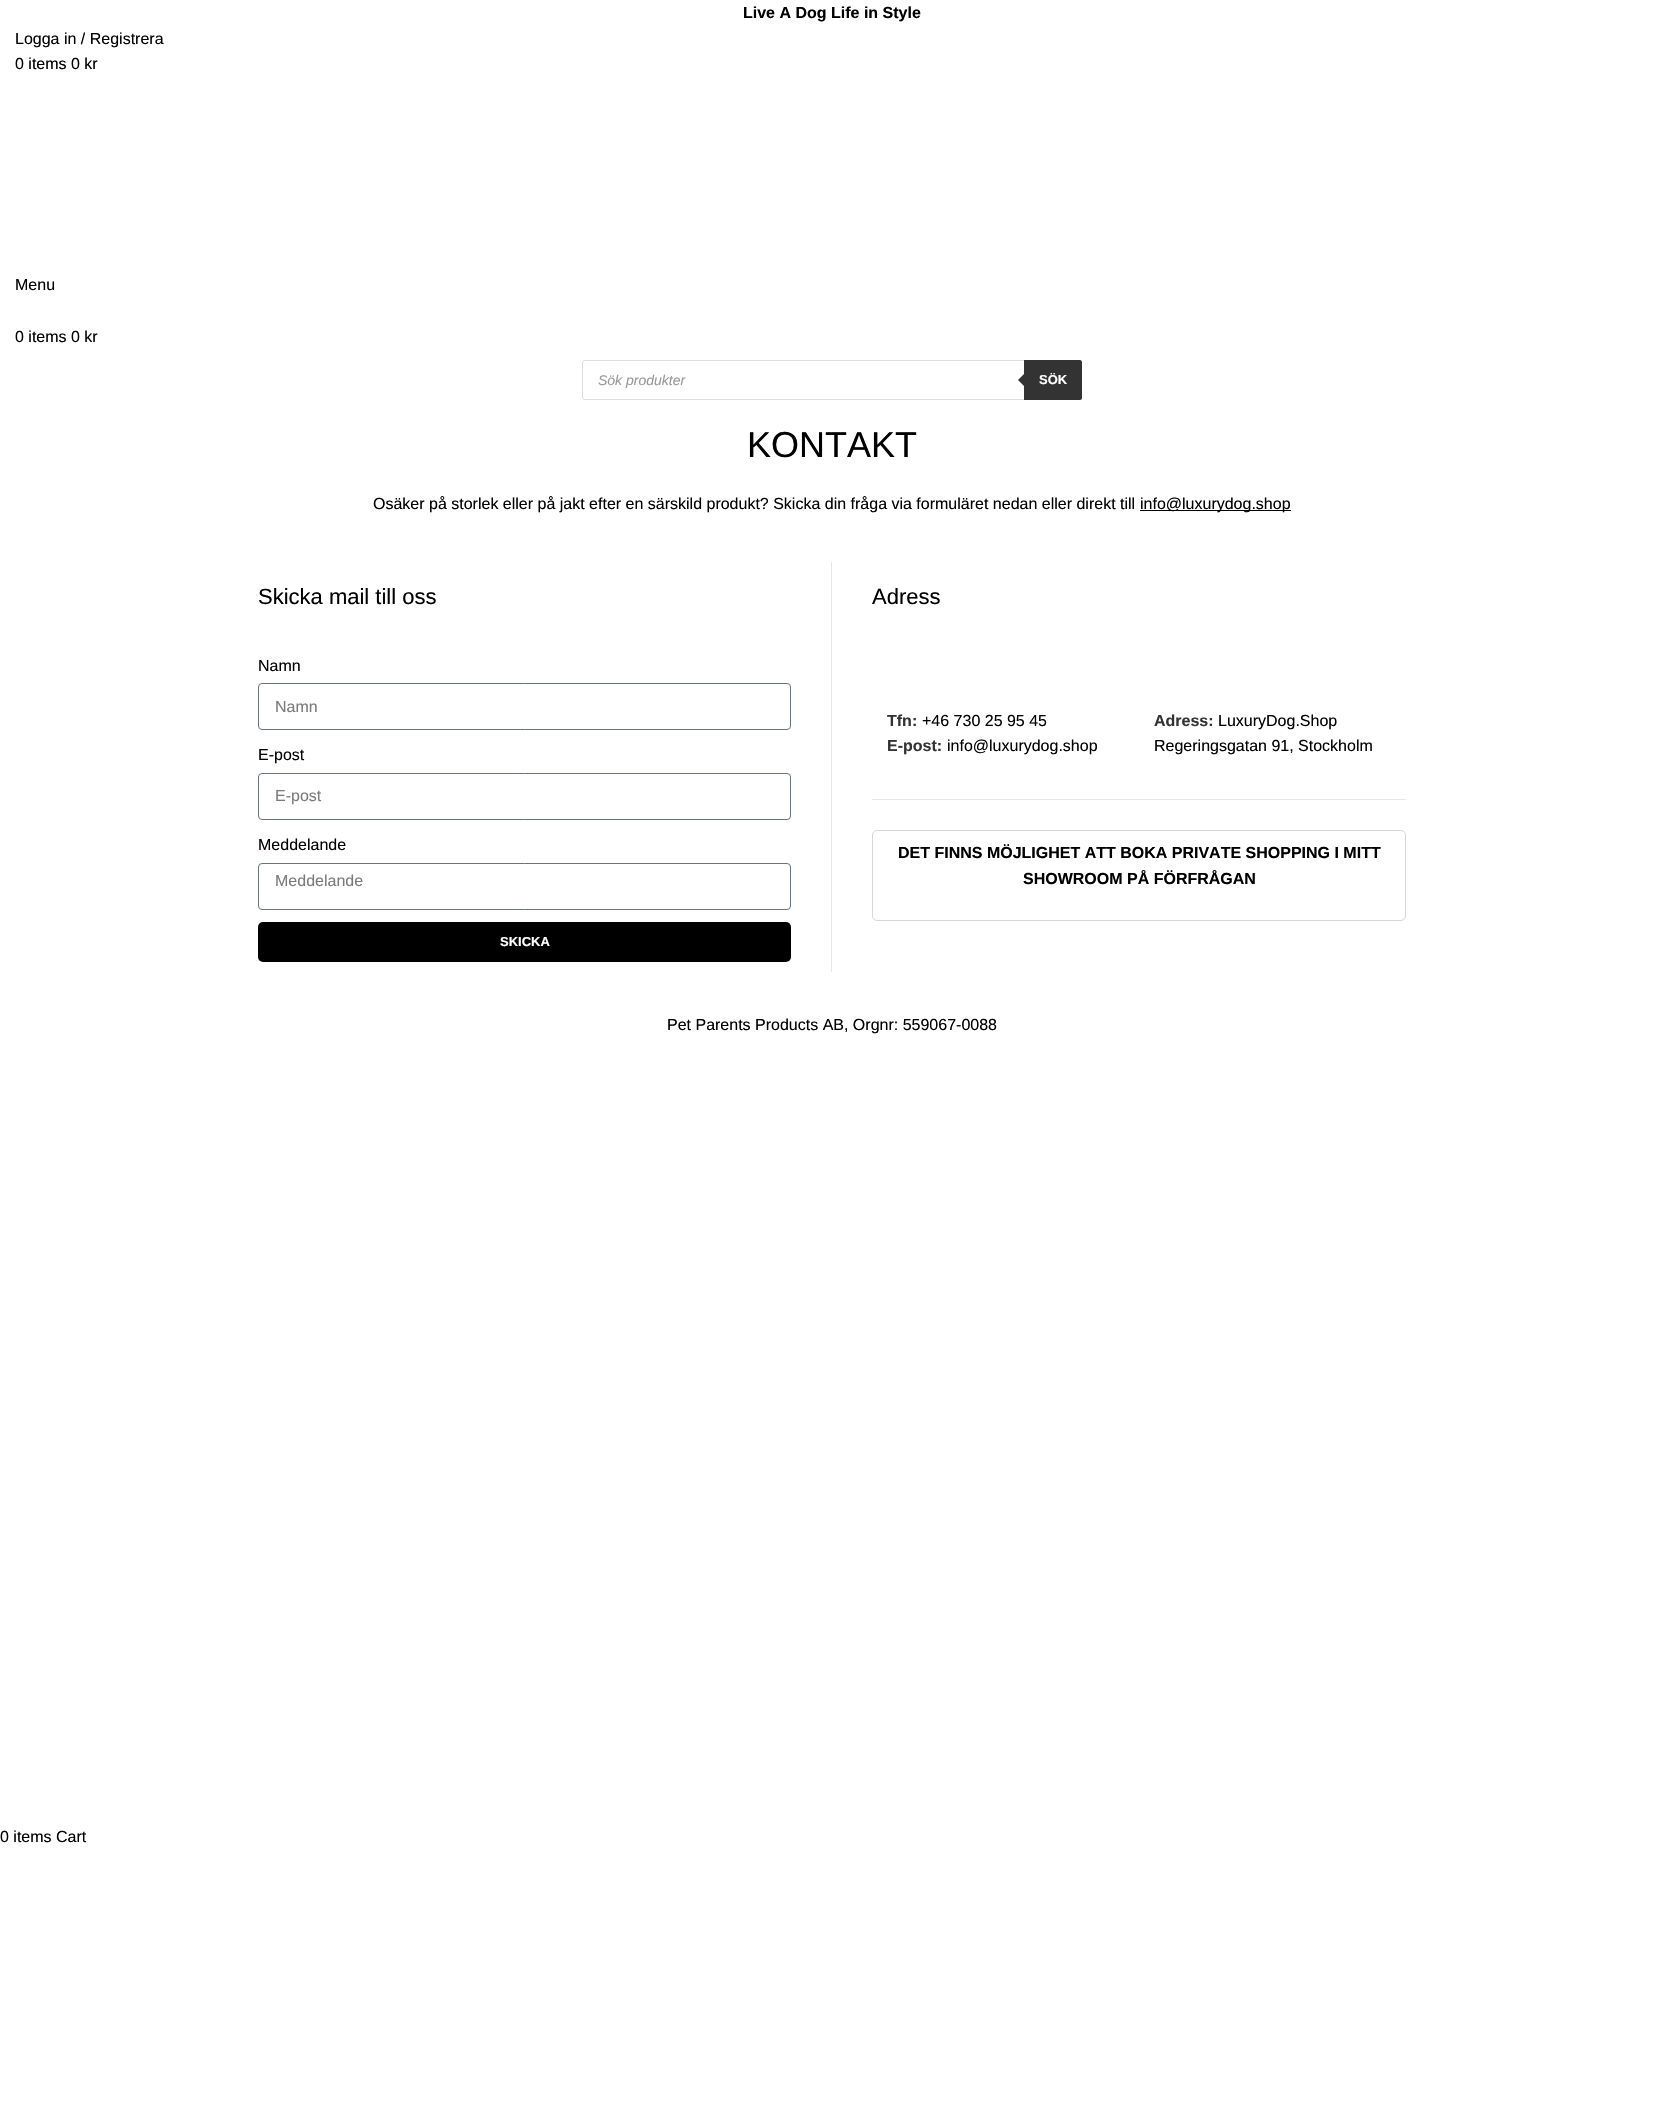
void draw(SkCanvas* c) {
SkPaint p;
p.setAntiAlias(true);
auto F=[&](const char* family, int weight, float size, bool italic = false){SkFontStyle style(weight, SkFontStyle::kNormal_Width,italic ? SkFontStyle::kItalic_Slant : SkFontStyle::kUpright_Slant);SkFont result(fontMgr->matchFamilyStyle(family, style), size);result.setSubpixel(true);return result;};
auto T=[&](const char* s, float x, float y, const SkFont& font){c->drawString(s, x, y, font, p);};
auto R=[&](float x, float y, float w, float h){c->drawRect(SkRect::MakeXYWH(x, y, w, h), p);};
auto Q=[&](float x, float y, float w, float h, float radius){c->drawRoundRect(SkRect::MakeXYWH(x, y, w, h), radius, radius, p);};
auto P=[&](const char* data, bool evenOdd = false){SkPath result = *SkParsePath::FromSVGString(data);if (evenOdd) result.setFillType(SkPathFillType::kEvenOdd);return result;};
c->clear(0xffffffff);
auto f1 = F("Liberation Sans",700,16);
p.setColor(0xff000000);
T("Live A Dog Life in Style",743,18,f1);
auto f2 = F("Liberation Sans",400,16);
T("Logga in / Registrera",15,44,f2);
T("0 items 0 kr",15,69,f2);
T("Menu",15,290,f2);
T("0 items 0 kr",15,342,f2);
p.setStroke(true);
p.setStrokeWidth(1);
p.setColor(0xffdddddd);
c->drawRoundRect(SkRect::MakeXYWH(582.5,360.5,499,39),2.5,2.5,p);
auto f3 = F("Liberation Sans",400,14,true);
p.setStroke(false);
p.setColor(0xff999999);
T("Sök produkter",598,385,f3);
p.setColor(0xff333333);
c->drawPath(P("M1024 360h56c1 0 2 1 2 2v36c0 1-1 2-2 2h-56z"),p);
c->drawPath(P("M1026 372v16l-8-8z"),p);
auto f4 = F("Liberation Sans",700,13);
p.setColor(0xffffffff);
T("SÖK",1039,384,f4);
auto f5 = F("Liberation Sans",400,36);
p.setColor(0xff000000);
T("KONTAKT",747,457,f5);
T("Osäker på storlek eller på jakt efter en särskild produkt? Skicka din fråga via formuläret nedan eller direkt till",373,509,f2);
R(1140,510,151,1);
T("info@luxurydog.shop",1140,509,f2);
p.setColor(0xffe6e6e6);
R(831,562,1,410);
auto f6 = F("Liberation Sans",400,22);
p.setColor(0xff000000);
T("Skicka mail till oss",258,604,f6);
T("Namn",258,671,f2);
p.setStroke(true);
p.setColor(0xff69727d);
c->drawRoundRect(SkRect::MakeXYWH(258.5,683.5,532,46),3.5,3.5,p);
p.setStroke(false);
p.setColor(0xff797a7c);
T("Namn",275,712,f2);
p.setColor(0xff000000);
T("E-post",258,760,f2);
p.setStroke(true);
p.setColor(0xff69727d);
c->drawRoundRect(SkRect::MakeXYWH(258.5,773.5,532,46),3.5,3.5,p);
p.setStroke(false);
p.setColor(0xff797a7c);
T("E-post",275,801,f2);
p.setColor(0xff000000);
T("Meddelande",258,850,f2);
p.setStroke(true);
p.setColor(0xff69727d);
c->drawRoundRect(SkRect::MakeXYWH(258.5,863.5,532,46),3.5,3.5,p);
p.setStroke(false);
p.setColor(0xff797a7c);
T("Meddelande",275,886,f2);
p.setColor(0xff000000);
Q(258,922,533,40,5);
p.setColor(0xffffffff);
T("SKICKA",500,946,f4);
p.setColor(0xff000000);
T("Adress",872,604,f6);
p.setColor(0xffe6e6e6);
R(872,799,534,1);
p.setColor(0xff333333);
T("Tfn:",887,726,f1);
p.setColor(0xff000000);
T("+46 730 25 95 45",922,726,f2);
p.setColor(0xff333333);
T("E-post:",887,751,f1);
p.setColor(0xff000000);
T("info@luxurydog.shop",947,751,f2);
p.setColor(0xff333333);
T("Adress:",1154,726,f1);
p.setColor(0xff000000);
T("LuxuryDog.Shop",1218,726,f2);
T("Regeringsgatan 91, Stockholm",1154,751,f2);
p.setStroke(true);
p.setColor(0xffd7d7d7);
c->drawRoundRect(SkRect::MakeXYWH(872.5,830.5,533,90),4.5,4.5,p);
p.setStroke(false);
p.setColor(0xff000000);
T("DET FINNS MÖJLIGHET ATT BOKA PRIVATE SHOPPING I MITT",898,858,f1);
T("SHOWROOM PÅ FÖRFRÅGAN",1023,884,f1);
T("Pet Parents Products AB, Orgnr: 559067-0088",667,1030,f2);
T("0 items Cart",0,1842,f2);
}
